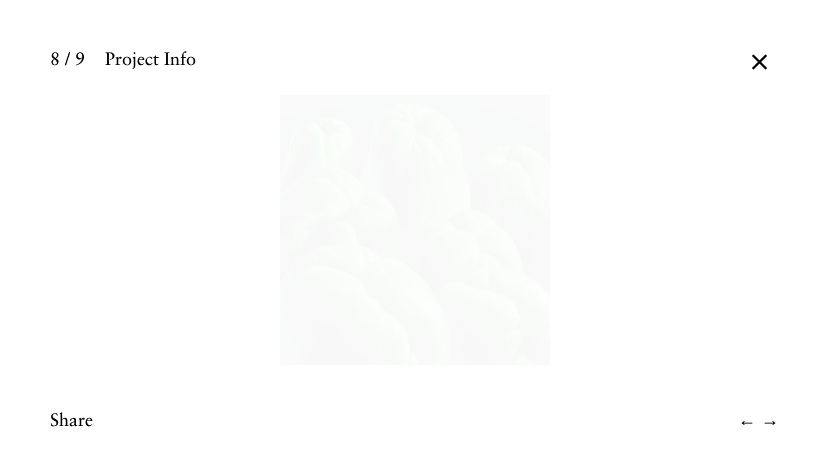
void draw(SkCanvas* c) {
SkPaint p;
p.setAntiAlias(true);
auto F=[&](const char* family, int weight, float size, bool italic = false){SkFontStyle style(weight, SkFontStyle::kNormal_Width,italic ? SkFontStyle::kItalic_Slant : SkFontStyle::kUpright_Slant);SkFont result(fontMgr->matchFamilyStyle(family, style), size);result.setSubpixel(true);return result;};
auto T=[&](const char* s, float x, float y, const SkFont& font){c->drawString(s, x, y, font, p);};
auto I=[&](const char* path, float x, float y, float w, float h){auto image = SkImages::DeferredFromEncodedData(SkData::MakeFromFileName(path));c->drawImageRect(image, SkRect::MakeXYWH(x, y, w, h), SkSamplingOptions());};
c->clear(0xffffffff);
auto f1 = F("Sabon",400,18);
p.setColor(0xff000000);
T("8 / 9",50,65,f1);
T("Project Info",105,65,f1);
I("1.png",752,54,15,16);
I("2.png",280,95,270,270);
T("Share",50,426,f1);
auto f2 = F("Liberation Serif",700,18);
T("←",738,426,f2);
T("→",761,426,f2);
}
